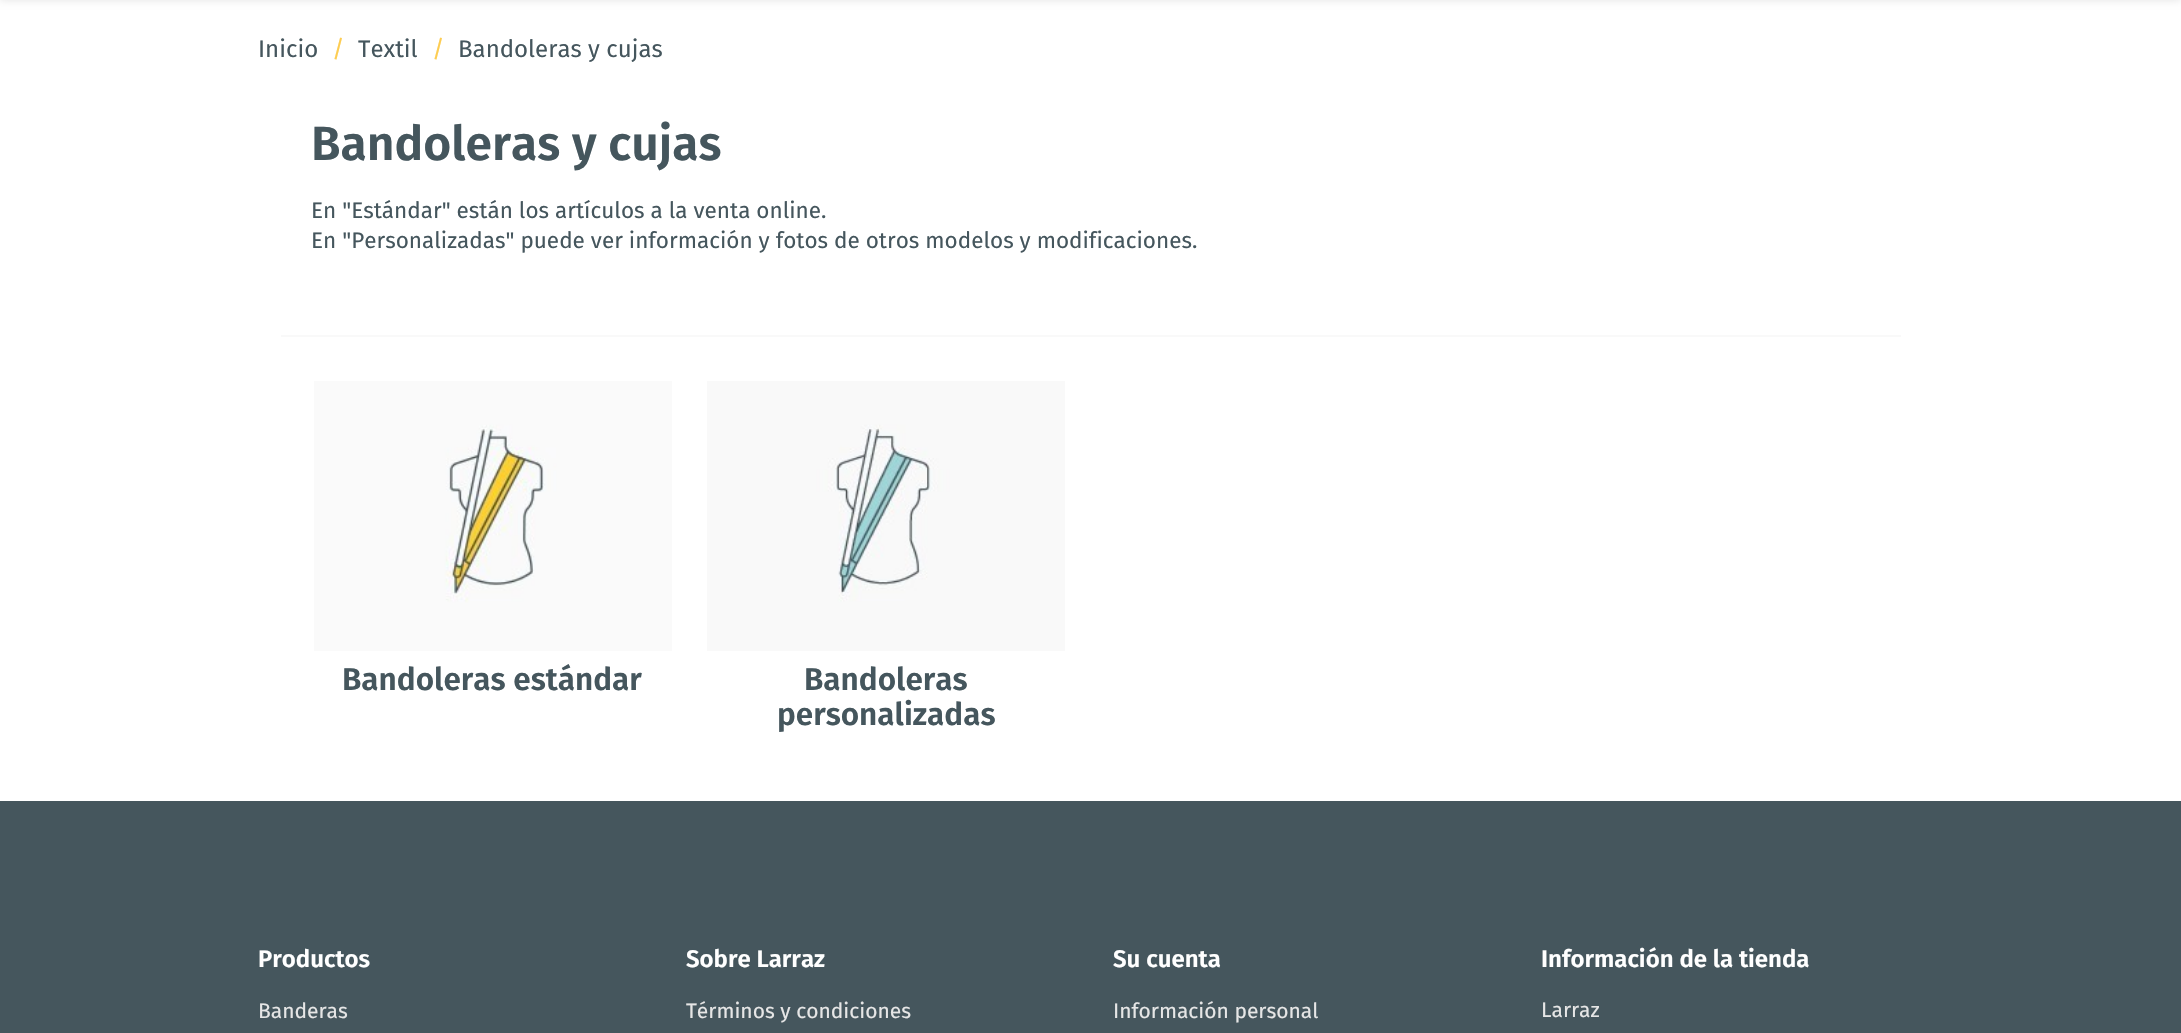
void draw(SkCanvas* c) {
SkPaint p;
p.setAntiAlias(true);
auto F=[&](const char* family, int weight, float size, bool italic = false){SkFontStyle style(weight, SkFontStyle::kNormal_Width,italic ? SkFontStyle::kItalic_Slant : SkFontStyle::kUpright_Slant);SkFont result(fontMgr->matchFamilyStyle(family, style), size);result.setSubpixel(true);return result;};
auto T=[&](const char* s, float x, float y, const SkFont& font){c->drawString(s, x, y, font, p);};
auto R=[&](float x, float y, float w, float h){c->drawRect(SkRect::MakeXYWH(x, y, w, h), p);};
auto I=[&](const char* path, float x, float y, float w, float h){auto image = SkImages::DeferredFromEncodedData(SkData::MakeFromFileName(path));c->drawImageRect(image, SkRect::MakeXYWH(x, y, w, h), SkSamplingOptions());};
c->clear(0xffffffff);
p.setColor(0x1c000000);
p.setMaskFilter(SkMaskFilter::MakeBlur(kNormal_SkBlurStyle, 4));
c->drawRect(SkRect::MakeXYWH(0,-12,2181,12),p);
p.setMaskFilter(nullptr);
auto f1 = F("Fira Sans",400,24);
p.setColor(0xff45565d);
T("Inicio",258,57,f1);
p.setColor(0xfffdcd52);
T("/",332,57,f1);
p.setColor(0xff45565d);
T("Textil",358,57,f1);
p.setColor(0xfffdcd52);
T("/",432,57,f1);
p.setColor(0xff45565d);
T("Bandoleras y cujas",458,57,f1);
auto f2 = F("Fira Sans",600,48);
T("Bandoleras y cujas",311,160,f2);
auto f3 = F("Fira Sans",400,22.5);
T("En \"Estándar\" están los artículos a la venta online.",311,218,f3);
T("En \"Personalizadas\" puede ver información y fotos de otros modelos y modificaciones.",311,248,f3);
p.setColor(0xfff9f9f9);
R(281,335,1620,2);
I("1.png",314,381,358,270);
auto f4 = F("Fira Sans",600,31.5);
p.setColor(0xff45565d);
T("Bandoleras estándar",342,690,f4);
I("2.png",707,381,358,270);
T("Bandoleras",804,690,f4);
T("personalizadas",777,725,f4);
R(0,801,2181,232);
auto f5 = F("Fira Sans",600,24);
p.setColor(0xffffffff);
T("Productos",258,967,f5);
auto f6 = F("Fira Sans",400,21);
p.setColor(0xffe6e6e6);
T("Banderas",258,1018,f6);
p.setColor(0xffffffff);
T("Sobre Larraz",686,967,f5);
p.setColor(0xffe6e6e6);
T("Términos y condiciones",686,1018,f6);
p.setColor(0xffffffff);
T("Su cuenta",1113,967,f5);
p.setColor(0xffe6e6e6);
T("Información personal",1113,1018,f6);
p.setColor(0xffffffff);
T("Información de la tienda",1541,967,f5);
p.setColor(0xffe6e6e6);
T("Larraz",1541,1017,f6);
}
